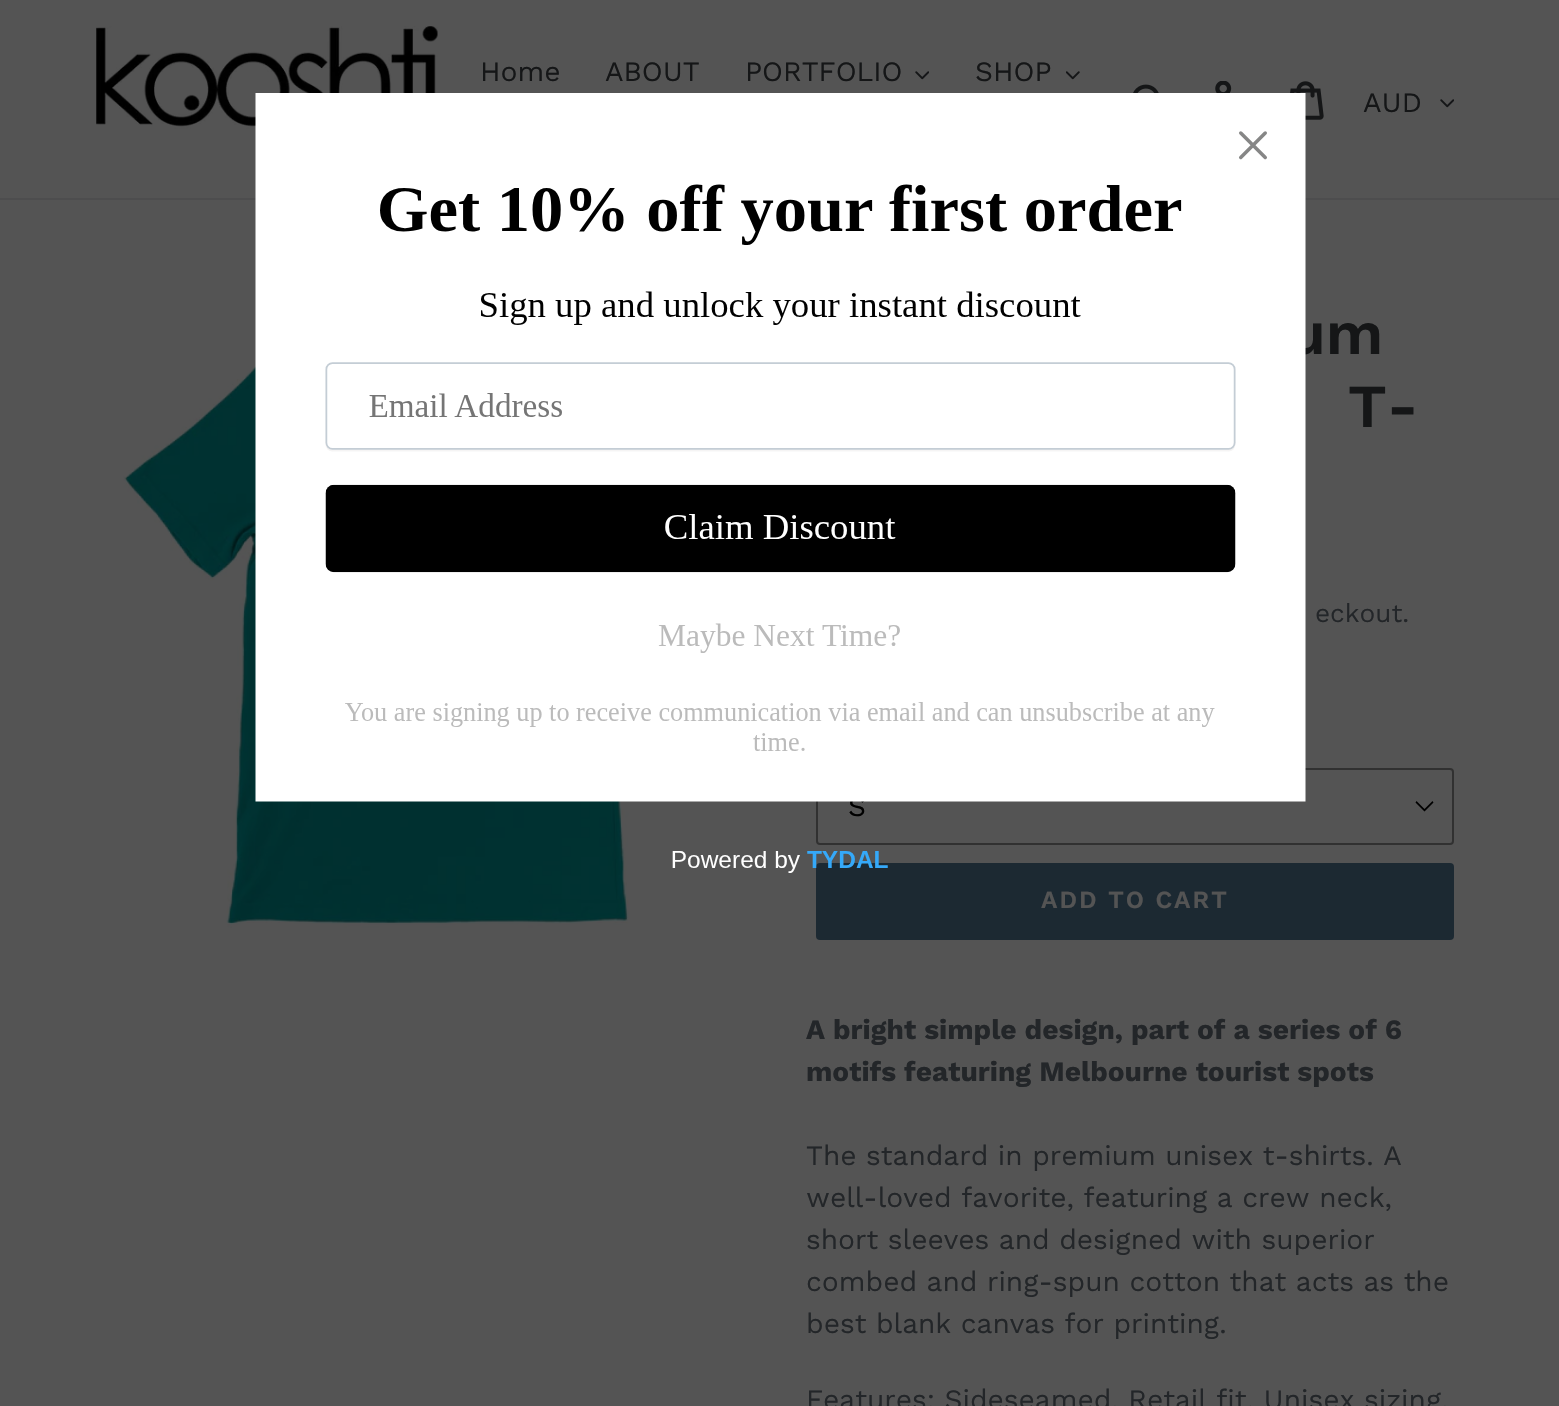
void draw(SkCanvas* c) {
SkPaint p;
p.setAntiAlias(true);
auto F=[&](const char* family, int weight, float size, bool italic = false){SkFontStyle style(weight, SkFontStyle::kNormal_Width,italic ? SkFontStyle::kItalic_Slant : SkFontStyle::kUpright_Slant);SkFont result(fontMgr->matchFamilyStyle(family, style), size);result.setSubpixel(true);return result;};
auto T=[&](const char* s, float x, float y, const SkFont& font){c->drawString(s, x, y, font, p);};
auto L=[&](const char* s, float x, float y, const SkFont& font, const SkPaint& ink, float letter, float word){std::vector<SkGlyphID> glyphs(font.countText(s, strlen(s), SkTextEncoding::kUTF8));std::vector<float> xs(glyphs.size());font.textToGlyphs(s, strlen(s), SkTextEncoding::kUTF8, glyphs);font.getXPos(glyphs, xs, x);float extra = 0;for (size_t i = 0; i < glyphs.size(); i++) {xs[i] += extra;extra += letter + word * (glyphs[i] == font.unicharToGlyph(' '));}c->drawTextBlob(SkTextBlob::MakeFromPosHGlyphs(glyphs, xs, y, font), 0, 0, ink);};
auto R=[&](float x, float y, float w, float h){c->drawRect(SkRect::MakeXYWH(x, y, w, h), p);};
auto Q=[&](float x, float y, float w, float h, float radius){c->drawRoundRect(SkRect::MakeXYWH(x, y, w, h), radius, radius, p);};
auto I=[&](const char* path, float x, float y, float w, float h){auto image = SkImages::DeferredFromEncodedData(SkData::MakeFromFileName(path));c->drawImageRect(image, SkRect::MakeXYWH(x, y, w, h), SkSamplingOptions());};
auto P=[&](const char* data, bool evenOdd = false){SkPath result = *SkParsePath::FromSVGString(data);if (evenOdd) result.setFillType(SkPathFillType::kEvenOdd);return result;};
c->clear(0xffffffff);
p.setColor(0xffe8e9eb);
R(0,198,1559,2);
I("2.png",96,26,342,120);
auto f1 = F("Work Sans",400,28);
p.setColor(0xff3d4246);
T("Home",480,81,f1);
T("ABOUT",605,81,f1);
T("PORTFOLIO",745,81,f1);
I("3.png",915,71,14,9);
T("SHOP",975,81,f1);
I("4.png",1066,71,14,9);
I("5.png",1133,84,26,9);
I("6.png",1215,81,17,12);
I("7.png",1290,81,34,39);
T("AUD",1363,112,f1);
I("3.png",1440,99,14,9);
I("8.png",123,314,602,614);
auto f2 = F("Work Sans",600,61);
T("um",1288,354,f2);
T("T-",1348,427,f2);
auto f3 = F("Work Sans",400,26);
p.setColor(0xff69727b);
T("eckout.",1315,622,f3);
p.setColor(0xff000000);
c->drawPath(P("M1424.5 811.5l-9-9l1-1.5l8 8l8-8l1 1.5z"),p);
p.setStroke(true);
p.setStrokeWidth(2);
p.setColor(0xff949494);
c->drawRoundRect(SkRect::MakeXYWH(817,769,636,75),3,3,p);
p.setStroke(false);
p.setColor(0xff000000);
T("S",848,816,f1);
p.setColor(0xff557b97);
Q(816,863,638,77,4);
auto f4 = F("Work Sans",600,24.5);
p.setColor(0xffffffff);
L("ADD TO CART",1041,908,f4,p,2,0);
auto f5 = F("Work Sans",700,28);
p.setColor(0xff69727b);
T("A bright simple design, part of a series of 6",806,1039,f5);
T("motifs featuring Melbourne tourist spots",806,1081,f5);
T("The standard in premium unisex t-shirts. A",806,1165,f1);
T("well-loved favorite, featuring a crew neck,",806,1207,f1);
T("short sleeves and designed with superior",806,1249,f1);
T("combed and ring-spun cotton that acts as the",806,1291,f1);
T("best blank canvas for printing.",806,1333,f1);
T("Features: Sideseamed. Retail fit. Unisex sizing.",806,1409,f1);
I("1.png",0,0,1559,1406);
}
